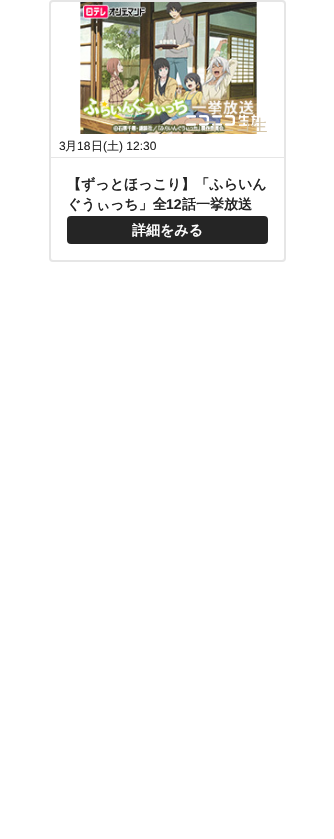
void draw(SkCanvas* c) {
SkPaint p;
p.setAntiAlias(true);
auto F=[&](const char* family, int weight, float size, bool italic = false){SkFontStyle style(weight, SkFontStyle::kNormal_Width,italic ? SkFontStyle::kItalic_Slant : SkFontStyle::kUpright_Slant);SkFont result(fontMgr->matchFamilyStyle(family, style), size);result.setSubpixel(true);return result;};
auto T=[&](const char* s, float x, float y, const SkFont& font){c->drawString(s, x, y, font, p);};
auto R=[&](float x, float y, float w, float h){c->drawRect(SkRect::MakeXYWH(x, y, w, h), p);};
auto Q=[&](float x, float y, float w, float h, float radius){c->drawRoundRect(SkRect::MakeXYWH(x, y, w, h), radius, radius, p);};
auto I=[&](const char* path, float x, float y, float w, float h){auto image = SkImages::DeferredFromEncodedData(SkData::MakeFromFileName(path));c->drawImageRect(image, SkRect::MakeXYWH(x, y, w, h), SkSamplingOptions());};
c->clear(0xffffffff);
p.setStroke(true);
p.setStrokeWidth(2);
p.setColor(0xffe6e6e6);
c->drawRoundRect(SkRect::MakeXYWH(50,1,235,260),3,3,p);
I("1.png",80,2,177,132);
I("2.png",186,114,71,12);
auto f1 = F("WenQuanYi Zen Hei",500,16);
p.setStroke(false);
p.setColor(0xffd3c5a9);
T("ニコニコ生",186,131,f1);
p.setColor(0xffe6e6e6);
R(51,157,233,1);
auto f2 = F("Liberation Sans",400,12);
p.setColor(0xff252525);
T("3",59,150,f2);
auto f3 = F("WenQuanYi Zen Hei",500,12);
T("月",65,150,f3);
T("18",77,150,f2);
T("日",91,150,f3);
T("(",103,150,f2);
T("土",107,150,f3);
T(") 12:30",119,150,f2);
auto f4 = F("WenQuanYi Zen Hei",700,14);
T("【ずっとほっこり】「ふらいん",67,189,f4);
T("ぐうぃっち」全",67,209,f4);
auto f5 = F("Liberation Sans",700,14);
T("12",166,209,f5);
T("話一挙放送",182,209,f4);
Q(67,216,201,28,4);
p.setColor(0xffffffff);
T("詳細をみる",132,235,f4);
}
